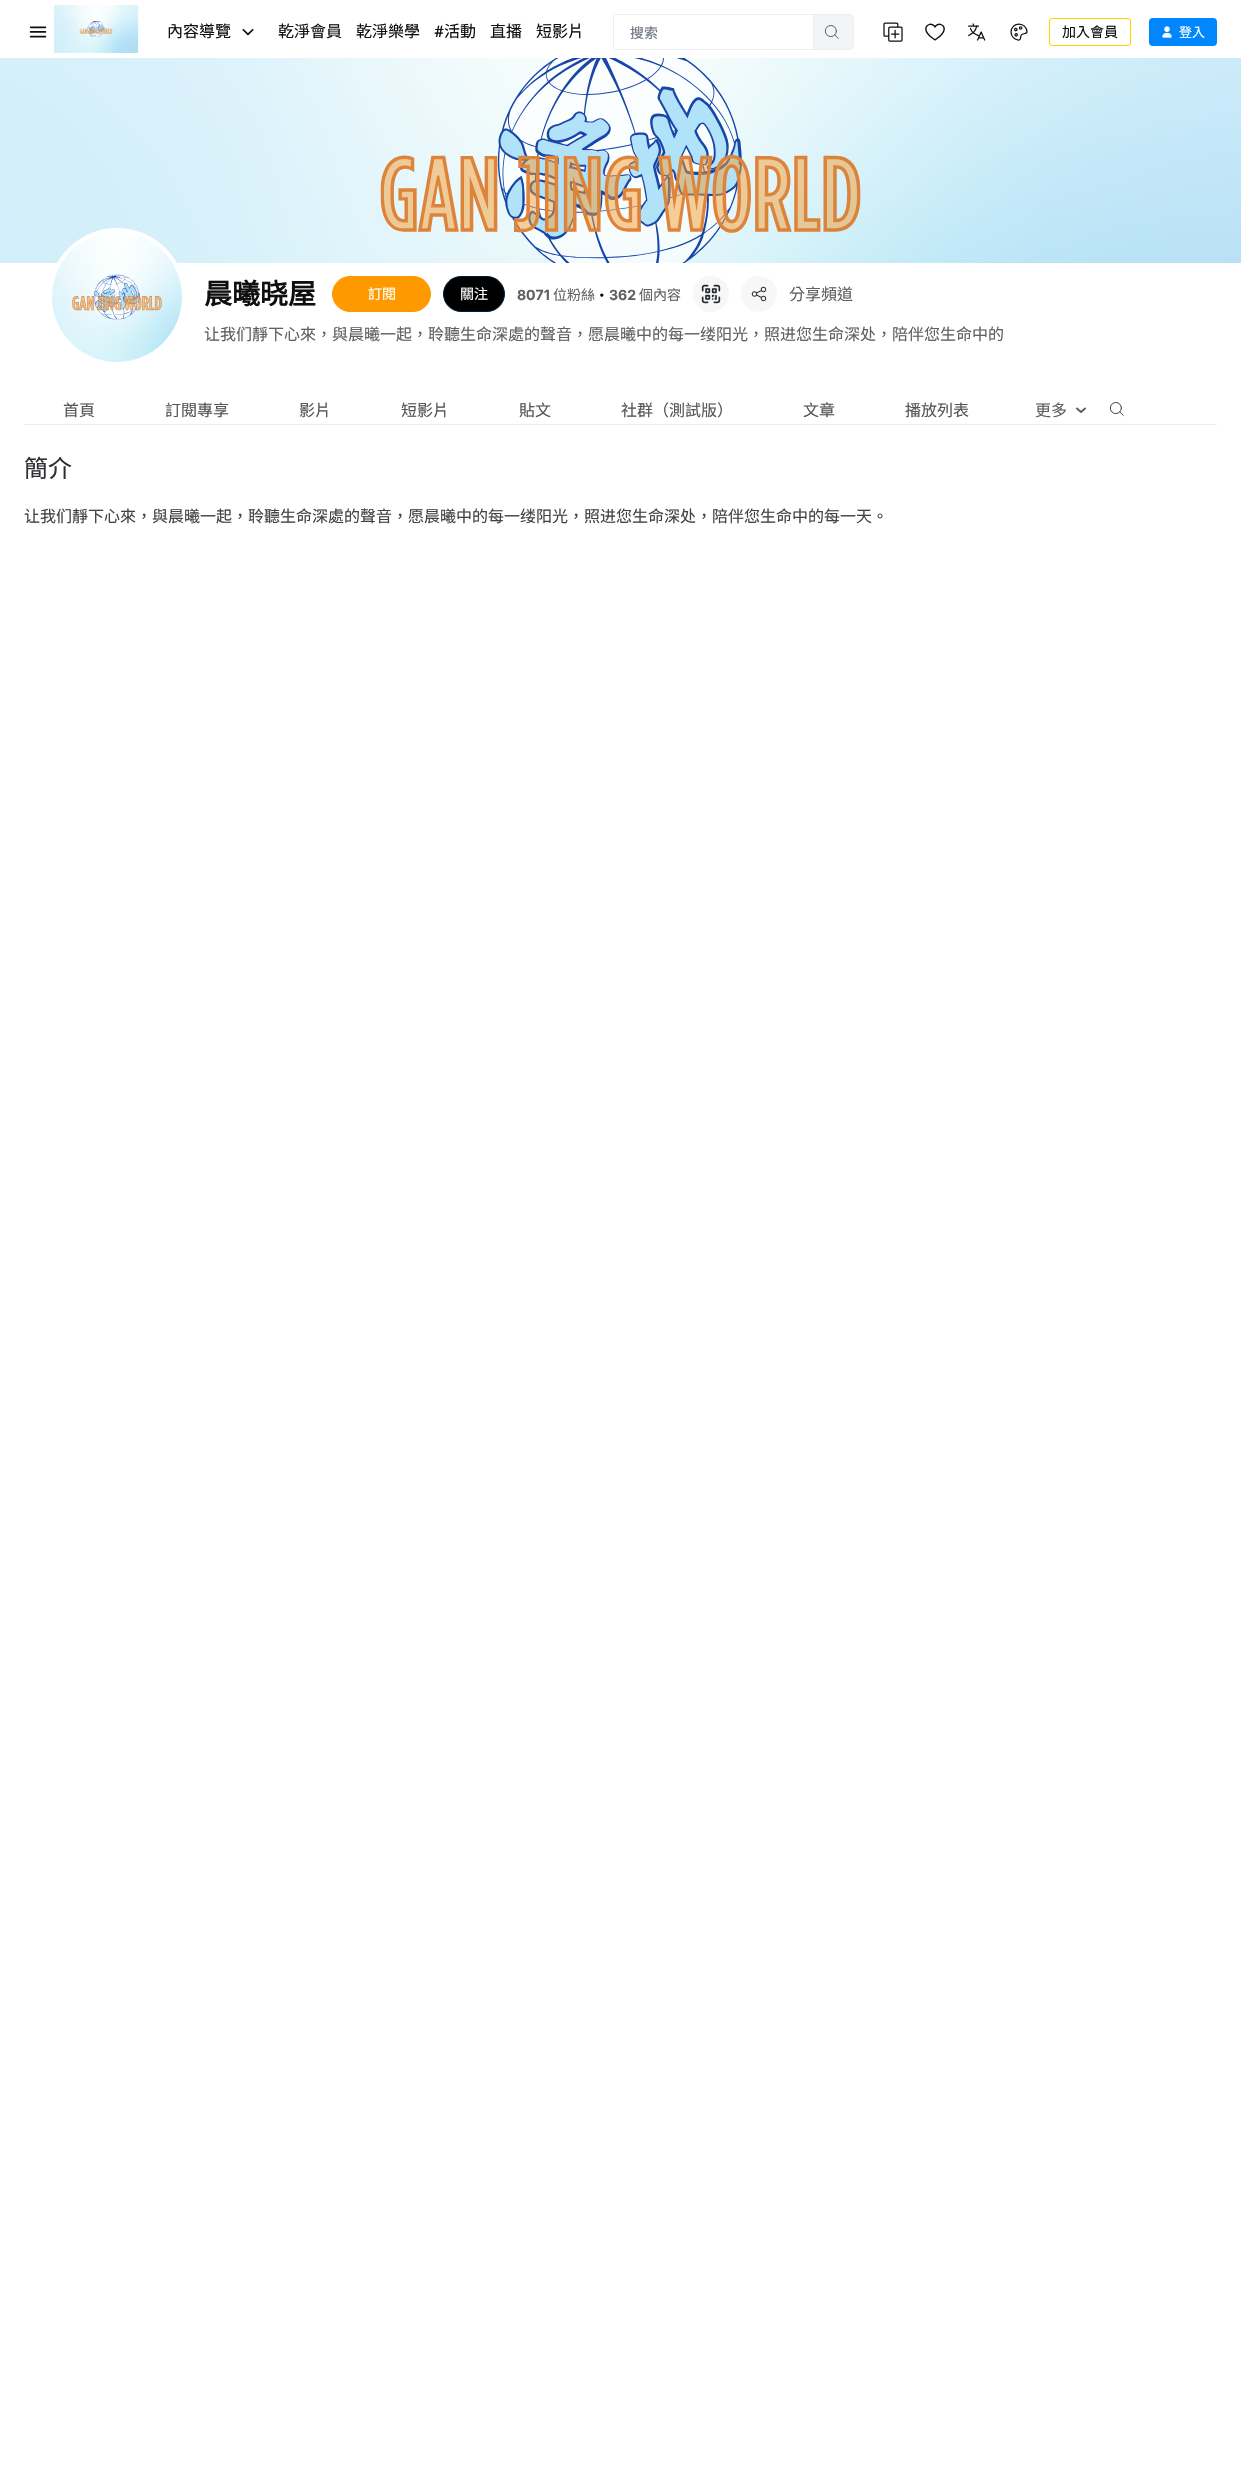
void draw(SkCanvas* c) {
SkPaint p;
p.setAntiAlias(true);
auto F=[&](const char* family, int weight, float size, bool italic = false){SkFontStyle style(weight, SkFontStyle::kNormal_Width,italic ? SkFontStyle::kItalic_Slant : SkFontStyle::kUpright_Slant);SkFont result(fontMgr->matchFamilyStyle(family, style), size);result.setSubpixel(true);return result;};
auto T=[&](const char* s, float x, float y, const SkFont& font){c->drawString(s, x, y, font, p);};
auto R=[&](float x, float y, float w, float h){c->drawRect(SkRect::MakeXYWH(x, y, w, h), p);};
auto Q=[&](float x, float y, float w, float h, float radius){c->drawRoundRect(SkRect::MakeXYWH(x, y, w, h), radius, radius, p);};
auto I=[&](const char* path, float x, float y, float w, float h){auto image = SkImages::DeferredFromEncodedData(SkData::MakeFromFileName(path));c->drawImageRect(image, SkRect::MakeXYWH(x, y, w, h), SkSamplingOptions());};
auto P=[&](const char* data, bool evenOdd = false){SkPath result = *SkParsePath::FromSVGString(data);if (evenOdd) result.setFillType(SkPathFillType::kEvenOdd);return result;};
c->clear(0xffffffff);
I("1.png",29,26,18,12);
I("2.png",54,5,85,48);
auto f1 = F("Noto Sans CJK TC",400,16);
p.setColor(0xff0f0f0f);
T("內容導覽",167,37,f1);
I("3.png",242,28,12,8);
T("乾淨會員",278,37,f1);
T("乾淨樂學",356,37,f1);
auto f2 = F("Roboto",500,16);
T("#",434,37,f2);
T("活動",444,37,f1);
T("直播",490,37,f1);
T("短影片",536,37,f1);
p.setStroke(true);
p.setStrokeWidth(1);
p.setColor(0xffeeeeee);
c->drawPath(P("M617 14.5h196.5v35h-196.5c-2 0-3.5-1.5-3.5-3.5v-28c0-2 1.5-3.5 3.5-3.5z"),p);
auto f3 = F("Noto Sans CJK TC",400,14);
p.setStroke(false);
p.setColor(0xff6b7280);
T("搜索",630,38,f3);
p.setColor(0xfff2f4f6);
c->drawPath(P("M814 14h36c2 0 4 2 4 4v28c0 2-2 4-4 4h-36z"),p);
p.setColor(0xffeeeeee);
c->drawPath(P("M814 14h36c2 0 4 2 4 4v28c0 2-2 4-4 4h-36zm0 1h36c2 0 3 1 3 3v28c0 2-1 3-3 3h-36z",true),p);
I("4.png",824,25,15,15);
I("5.png",883,22,20,20);
I("6.png",925,23,20,18);
I("7.png",968,23,18,18);
I("8.png",1010,23,18,18);
{
const SkColor colors[] = {0xffff9900,0xffffd600,0xffffd601};
const float stops[] = {.01,.01,1};
const SkPoint ends[] = {{1063,60}, {1117,4.4}};
p.setShader(SkGradientShader::MakeLinear(ends, colors, stops, 3, SkTileMode::kClamp));
p.setAlpha(255);
}
Q(1049,18,82,28,4);
p.setShader(nullptr);
p.setColor(0xffffffff);
Q(1050,19,80,26,3);
p.setColor(0xff0f0f0f);
T("加入會員",1062,37,f3);
p.setColor(0xff0187fd);
Q(1149,18,68,28,4);
I("9.png",1162,26,10,12);
auto f4 = F("Noto Sans CJK TC",400,13);
p.setColor(0xffffffff);
T("登入",1179,37,f4);
I("10.png",0,58,1241,205);
c->drawCircle(117,297,69,p);
I("11.png",52,232,130,130);
auto f5 = F("Noto Sans CJK TC",700,28);
p.setColor(0xff0f0f0f);
T("晨曦晓屋",204,304,f5);
p.setColor(0xffff9900);
c->drawRoundRect(SkRect::MakeXYWH(332.5,276.5,98,35),17.5,17.5,p);
p.setStroke(true);
c->drawRoundRect(SkRect::MakeXYWH(332.5,276.5,98,35),17.5,17.5,p);
p.setStroke(false);
p.setColor(0xffffffff);
T("訂閱",368,299,f3);
p.setColor(0xff000000);
c->drawRoundRect(SkRect::MakeXYWH(443.5,276.5,61,35),17.5,17.5,p);
p.setStroke(true);
p.setColor(0xff001d38);
c->drawRoundRect(SkRect::MakeXYWH(443.5,276.5,61,35),17.5,17.5,p);
p.setStroke(false);
p.setColor(0xffffffff);
T("關注",460,299,f3);
auto f6 = F("Inter",700,14);
p.setColor(0xff606060);
T("8071",517,300,f6);
T("位粉絲",553,300,f3);
auto f7 = F("Inter",400,10);
p.setColor(0xff000000);
T("•",599,298,f7);
p.setColor(0xff606060);
T("362",609,300,f6);
T("個內容",639,300,f3);
p.setColor(0xfff7f7f7);
c->drawCircle(711,294,18,p);
I("12.png",701,284,20,20);
I("13.png",741,276,36,36);
p.setColor(0xff606060);
T("分享頻道",789,300,f1);
T("让我们靜下心來，與晨曦一起，聆聽生命深處的聲音，愿晨曦中的每一缕阳光，照进您生命深处，陪伴您生命中的",204,340,f1);
p.setColor(0xffeeeeee);
R(24,424,1193,1);
p.setColor(0xff545454);
T("首頁",63,416,f1);
T("訂閱專享",165,416,f1);
T("影片",299,416,f1);
T("短影片",401,416,f1);
T("貼文",519,416,f1);
T("社群（測試版）",621,416,f1);
T("文章",803,416,f1);
T("播放列表",905,416,f1);
p.setColor(0xff606060);
T("更多",1035,416,f1);
p.setStroke(true);
p.setStrokeWidth(2);
p.setStrokeCap(SkPaint::kRound_Cap);
p.setStrokeJoin(SkPaint::kRound_Join);
c->drawPath(P("M1085 408.5l-4 3.5l-4-3.5"),p);
I("14.png",1109,402,15,15);
auto f8 = F("Noto Sans CJK TC",400,24);
p.setStroke(false);
p.setColor(0xff2f2e35);
T("簡介",24,477,f8);
p.setColor(0xff424242);
T("让我们靜下心來，與晨曦一起，聆聽生命深處的聲音，愿晨曦中的每一缕阳光，照进您生命深处，陪伴您生命中的每一天。",24,522,f1);
}
